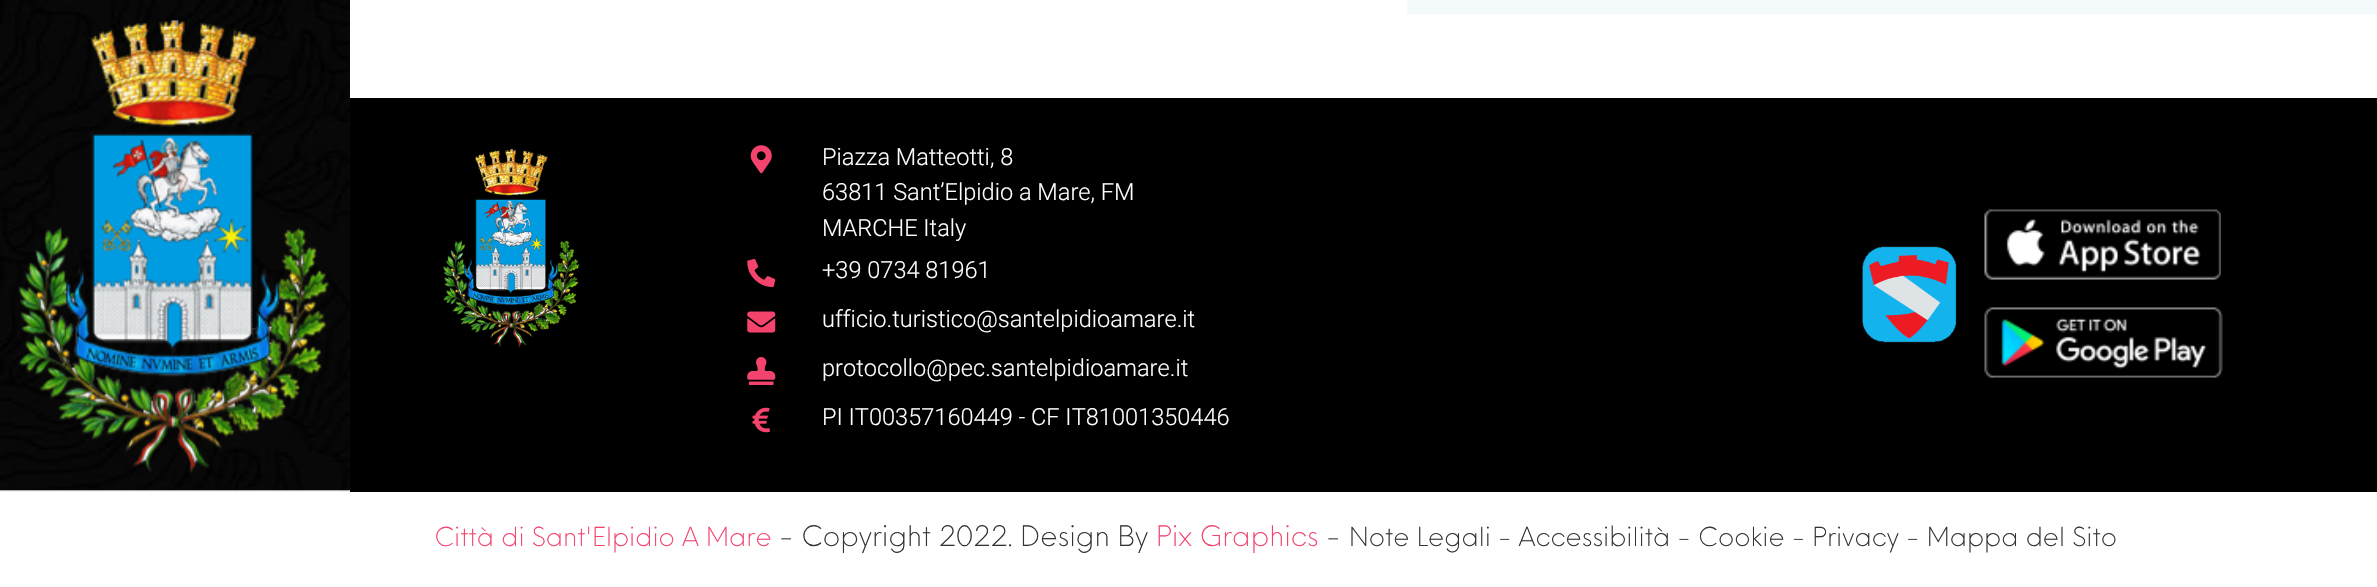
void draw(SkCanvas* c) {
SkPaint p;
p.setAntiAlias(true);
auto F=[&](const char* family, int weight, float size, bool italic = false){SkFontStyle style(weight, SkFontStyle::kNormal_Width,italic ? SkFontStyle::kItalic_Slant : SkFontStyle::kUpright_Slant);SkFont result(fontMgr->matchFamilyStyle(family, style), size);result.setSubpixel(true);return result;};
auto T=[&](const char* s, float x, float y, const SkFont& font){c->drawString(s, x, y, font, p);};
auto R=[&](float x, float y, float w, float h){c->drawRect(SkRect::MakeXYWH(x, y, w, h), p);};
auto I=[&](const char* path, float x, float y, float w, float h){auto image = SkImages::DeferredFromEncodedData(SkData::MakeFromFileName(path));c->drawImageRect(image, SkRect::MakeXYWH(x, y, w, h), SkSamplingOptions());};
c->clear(0xffffffff);
p.setColor(0xff080808);
R(0,0,350,490);
I("1.png",0,0,350,492);
I("2.png",18,20,311,453);
p.setColor(0xfff4f9fb);
R(1407,0,970,14);
p.setColor(0xff000000);
R(350,98,2027,394);
I("3.png",443,149,137,199);
I("4.png",750,145,22,29);
auto f1 = F("Roboto",300,23.6);
p.setColor(0xffffffff);
T("Piazza Matteotti, 8",822,165,f1);
T("63811 Sant’Elpidio a Mare, FM",822,200,f1);
T("MARCHE Italy",822,236,f1);
I("5.png",747,259,29,28);
T("+39 0734 81961",822,278,f1);
I("6.png",747,311,29,22);
T("ufficio.turistico@santelpidioamare.it",822,327,f1);
I("7.png",747,357,29,28);
T("protocollo@pec.santelpidioamare.it",822,376,f1);
I("8.png",752,407,18,26);
T("PI IT00357160449 - CF IT81001350446",822,425,f1);
I("9.png",1862,246,95,97);
I("10.png",1984,209,237,71);
I("11.png",1984,307,239,71);
auto f2 = F("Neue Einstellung",300,25.55);
p.setColor(0xfff4436d);
T("Città di Sant'Elpidio A Mare",434,546,f2);
auto f3 = F("Neue Einstellung",300,27.5);
p.setColor(0xff333333);
T("- Copyright 2022. Design By",779,546,f3);
p.setColor(0xfff4436d);
T("Pix Graphics",1156,546,f3);
p.setColor(0xff333333);
T("-",1326,546,f3);
T("Note Legali - Accessibilità - Cookie - Privacy - Mappa del Sito",1349,546,f2);
}
